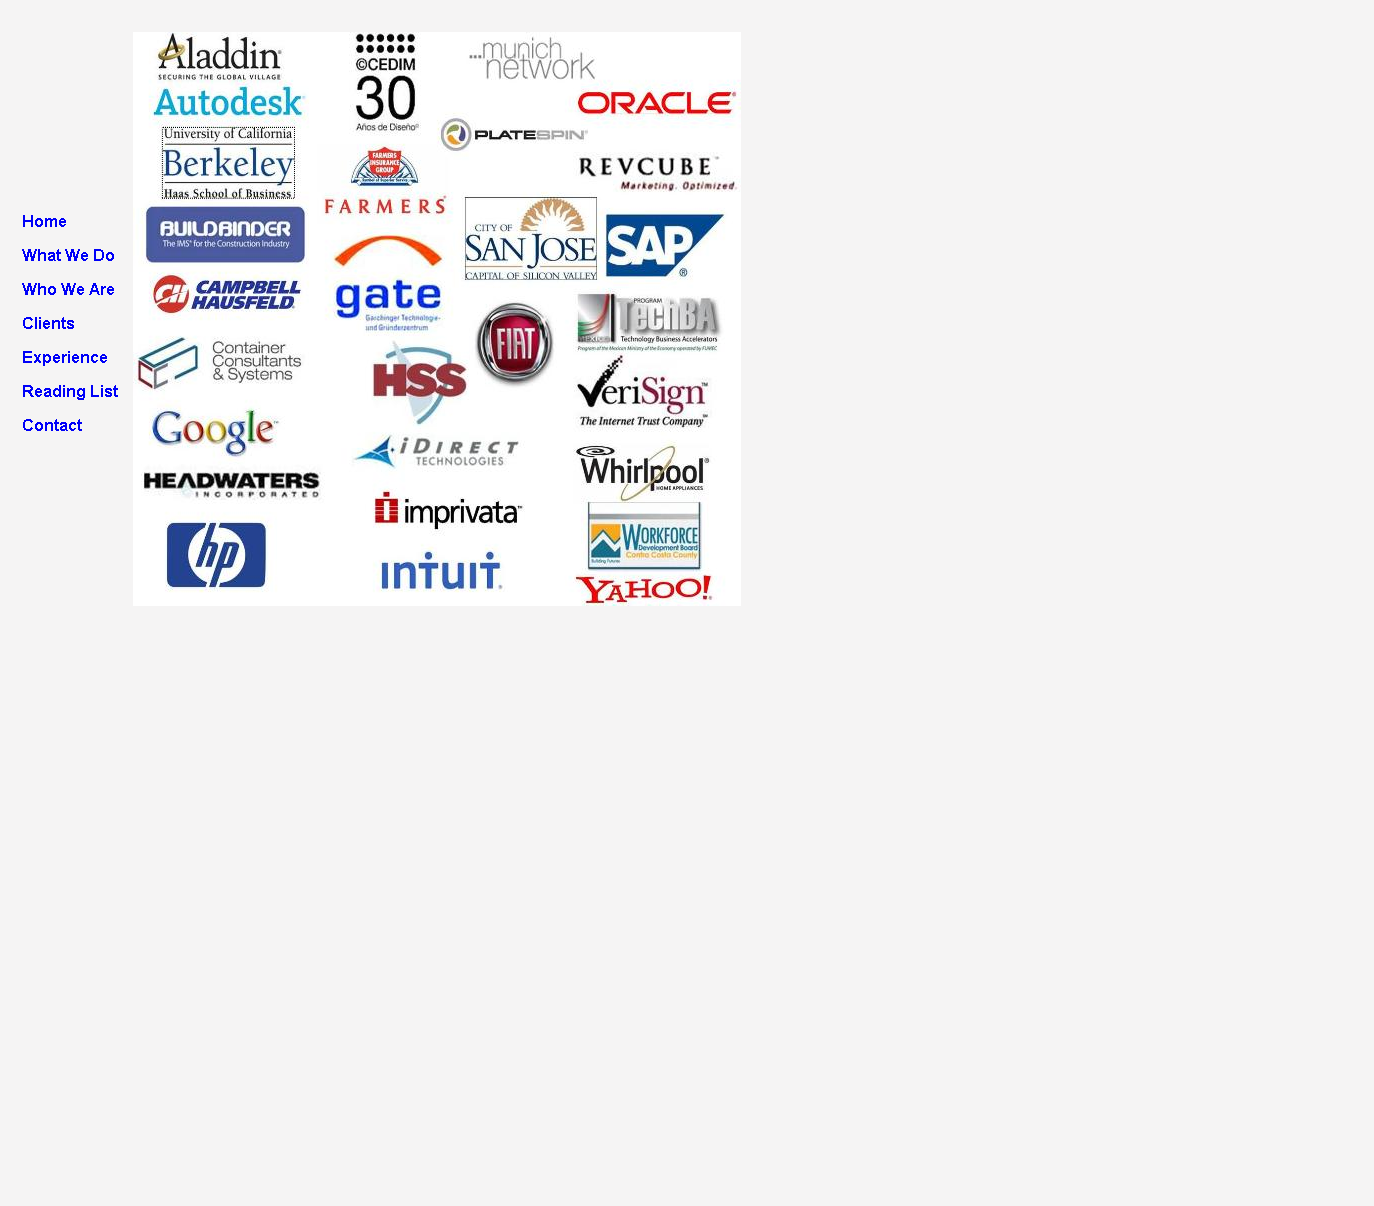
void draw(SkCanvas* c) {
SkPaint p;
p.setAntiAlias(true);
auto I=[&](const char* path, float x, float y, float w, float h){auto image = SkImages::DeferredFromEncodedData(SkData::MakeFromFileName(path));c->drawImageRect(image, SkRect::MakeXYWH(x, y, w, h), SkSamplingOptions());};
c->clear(0xfff5f4f4);
I("1.png",23,215,43,12);
I("2.png",22,249,92,12);
I("3.png",22,283,92,12);
I("4.png",23,317,51,12);
I("5.png",23,351,84,15);
I("6.png",23,385,95,15);
I("7.png",23,419,59,12);
I("8.png",133,32,608,574);
}
